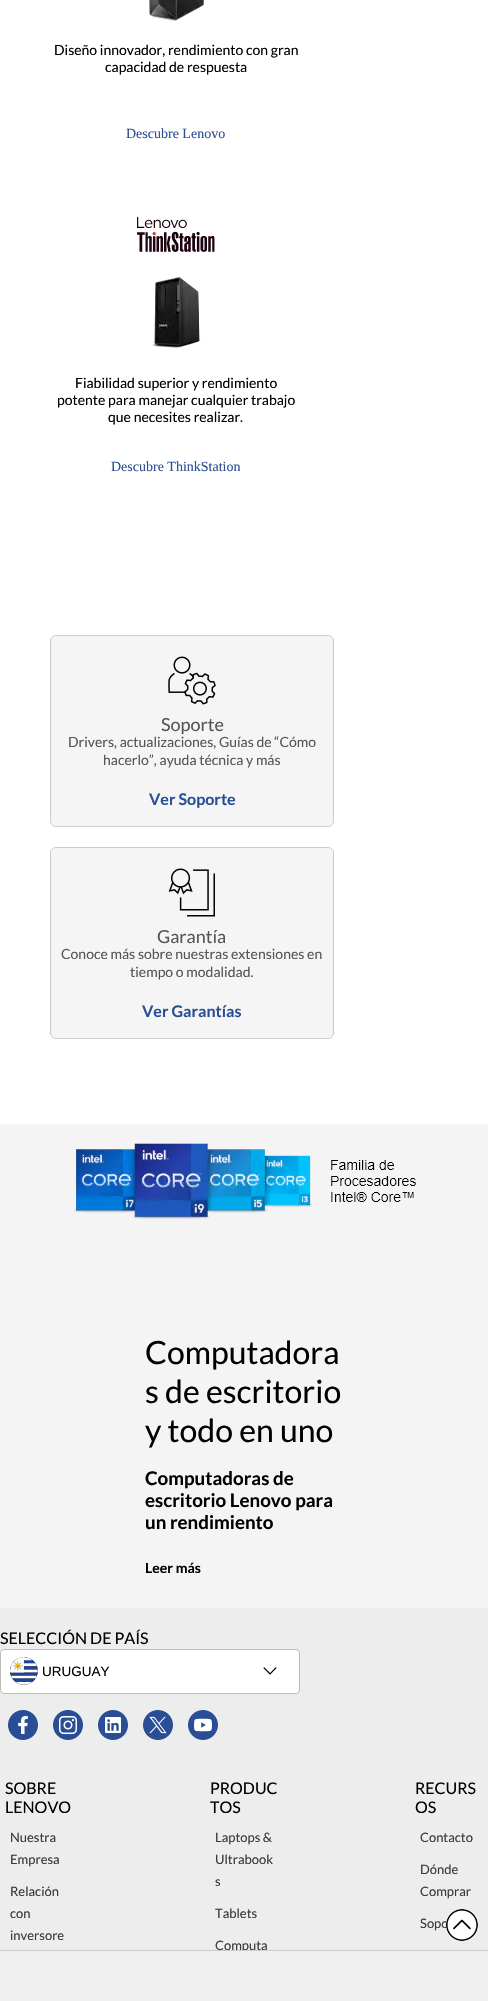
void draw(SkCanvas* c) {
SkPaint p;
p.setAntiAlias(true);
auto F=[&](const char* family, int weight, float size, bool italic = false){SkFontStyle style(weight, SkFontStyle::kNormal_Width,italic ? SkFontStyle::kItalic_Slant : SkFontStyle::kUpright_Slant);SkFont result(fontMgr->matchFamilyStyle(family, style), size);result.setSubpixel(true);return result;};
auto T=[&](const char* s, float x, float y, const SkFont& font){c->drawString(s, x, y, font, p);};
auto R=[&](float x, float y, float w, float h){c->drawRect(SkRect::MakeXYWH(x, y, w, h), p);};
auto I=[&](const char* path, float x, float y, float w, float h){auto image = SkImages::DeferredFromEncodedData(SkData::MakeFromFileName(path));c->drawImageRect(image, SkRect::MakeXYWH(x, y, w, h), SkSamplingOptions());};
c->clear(0xffffffff);
I("1.png",149,0,55,21);
auto f1 = F("Lato",400,14);
p.setColor(0xff000000);
T("Diseño innovador, rendimiento con gran",54,55,f1);
T("capacidad de respuesta",105,72,f1);
auto f2 = F("Liberation Serif",400,14);
p.setColor(0xff294e95);
T("Descubre Lenovo",126,138,f2);
I("2.png",137,217,78,35);
I("3.png",152,277,49,71);
p.setColor(0xff000000);
T("Fiabilidad superior y rendimiento",75,388,f1);
T("potente para manejar cualquier trabajo",57,405,f1);
T("que necesites realizar.",108,422,f1);
p.setColor(0xff294e95);
T("Descubre ThinkStation",111,471,f2);
p.setColor(0xfff5f5f5);
c->drawRoundRect(SkRect::MakeXYWH(50.5,635.5,283,191),5.5,5.5,p);
p.setStroke(true);
p.setStrokeWidth(1);
p.setColor(0xffcccccc);
c->drawRoundRect(SkRect::MakeXYWH(50.5,635.5,283,191),5.5,5.5,p);
I("4.png",168,656,48,49);
auto f3 = F("Lato",400,18);
p.setStroke(false);
p.setColor(0xff555555);
T("Soporte",161,731,f3);
T("Drivers, actualizaciones, Guías de “Cómo",68,747,f1);
T("hacerlo”, ayuda técnica y más",103,765,f1);
auto f4 = F("Lato",700,16);
p.setColor(0xff294e95);
T("Ver Soporte",149,805,f4);
p.setColor(0xfff5f5f5);
c->drawRoundRect(SkRect::MakeXYWH(50.5,847.5,283,191),5.5,5.5,p);
p.setStroke(true);
p.setColor(0xffcccccc);
c->drawRoundRect(SkRect::MakeXYWH(50.5,847.5,283,191),5.5,5.5,p);
I("5.png",168,868,47,49);
p.setStroke(false);
p.setColor(0xff555555);
T("Garantía",157,943,f3);
T("Conoce más sobre nuestras extensiones en",61,959,f1);
T("tiempo o modalidad.",130,977,f1);
p.setColor(0xff294e95);
T("Ver Garantías",142,1017,f4);
p.setColor(0xfff4f4f4);
R(0,1124,488,484);
I("6.png",74,1143,342,76);
auto f5 = F("Lato",400,32);
p.setColor(0xff000000);
T("Computadora",145,1364,f5);
T("s de escritorio",145,1403,f5);
T("y todo en uno",145,1442,f5);
auto f6 = F("Lato",700,18.75);
T("Computadoras de",145,1485,f6);
T("escritorio Lenovo para",145,1507,f6);
T("un rendimiento",145,1529,f6);
auto f7 = F("Lato",700,14);
T("Leer más",145,1573,f7);
p.setColor(0xffededed);
R(0,1608,488,342);
auto f8 = F("Lato",400,16);
p.setColor(0xff000000);
T("SELECCIÓN DE PAÍS",0,1644,f8);
p.setColor(0xffffffff);
c->drawRoundRect(SkRect::MakeXYWH(.5,1649.5,299,44),3.5,3.5,p);
p.setStroke(true);
p.setColor(0xffbcbcbc);
c->drawRoundRect(SkRect::MakeXYWH(.5,1649.5,299,44),3.5,3.5,p);
I("7.png",10,1657,28,28);
auto f9 = F("Liberation Sans",400,13.5);
p.setStroke(false);
p.setColor(0xff000000);
T("URUGUAY",42,1676,f9);
I("8.png",263,1667,14,8);
I("9.png",8,1710,30,30);
I("10.png",53,1710,30,30);
I("11.png",98,1710,30,30);
I("12.png",143,1710,30,30);
I("13.png",188,1710,30,30);
T("SOBRE",5,1794,f8);
T("LENOVO",5,1813,f8);
auto f10 = F("Lato",400,13);
p.setColor(0xff3a3a3a);
T("Nuestra",10,1842,f10);
T("Empresa",10,1864,f10);
T("Relación",10,1896,f10);
T("con",10,1918,f10);
T("inversore",10,1940,f10);
p.setColor(0xff000000);
T("PRODUC",210,1794,f8);
T("TOS",210,1813,f8);
p.setColor(0xff3a3a3a);
T("Laptops &",215,1842,f10);
T("Ultrabook",215,1864,f10);
T("s",215,1886,f10);
T("Tablets",215,1918,f10);
T("Computa",215,1950,f10);
p.setColor(0xff000000);
T("RECURS",415,1794,f8);
T("OS",415,1813,f8);
p.setColor(0xff3a3a3a);
T("Contacto",420,1842,f10);
T("Dónde",420,1874,f10);
T("Comprar",420,1896,f10);
T("Sopo",420,1928,f10);
p.setColor(0xffefefef);
R(0,1951,488,50);
p.setColor(0xffcccccc);
R(0,1950,488,1);
p.setColor(0xffffffff);
c->drawCircle(462,1925,16,p);
I("14.png",446,1909,32,32);
}
